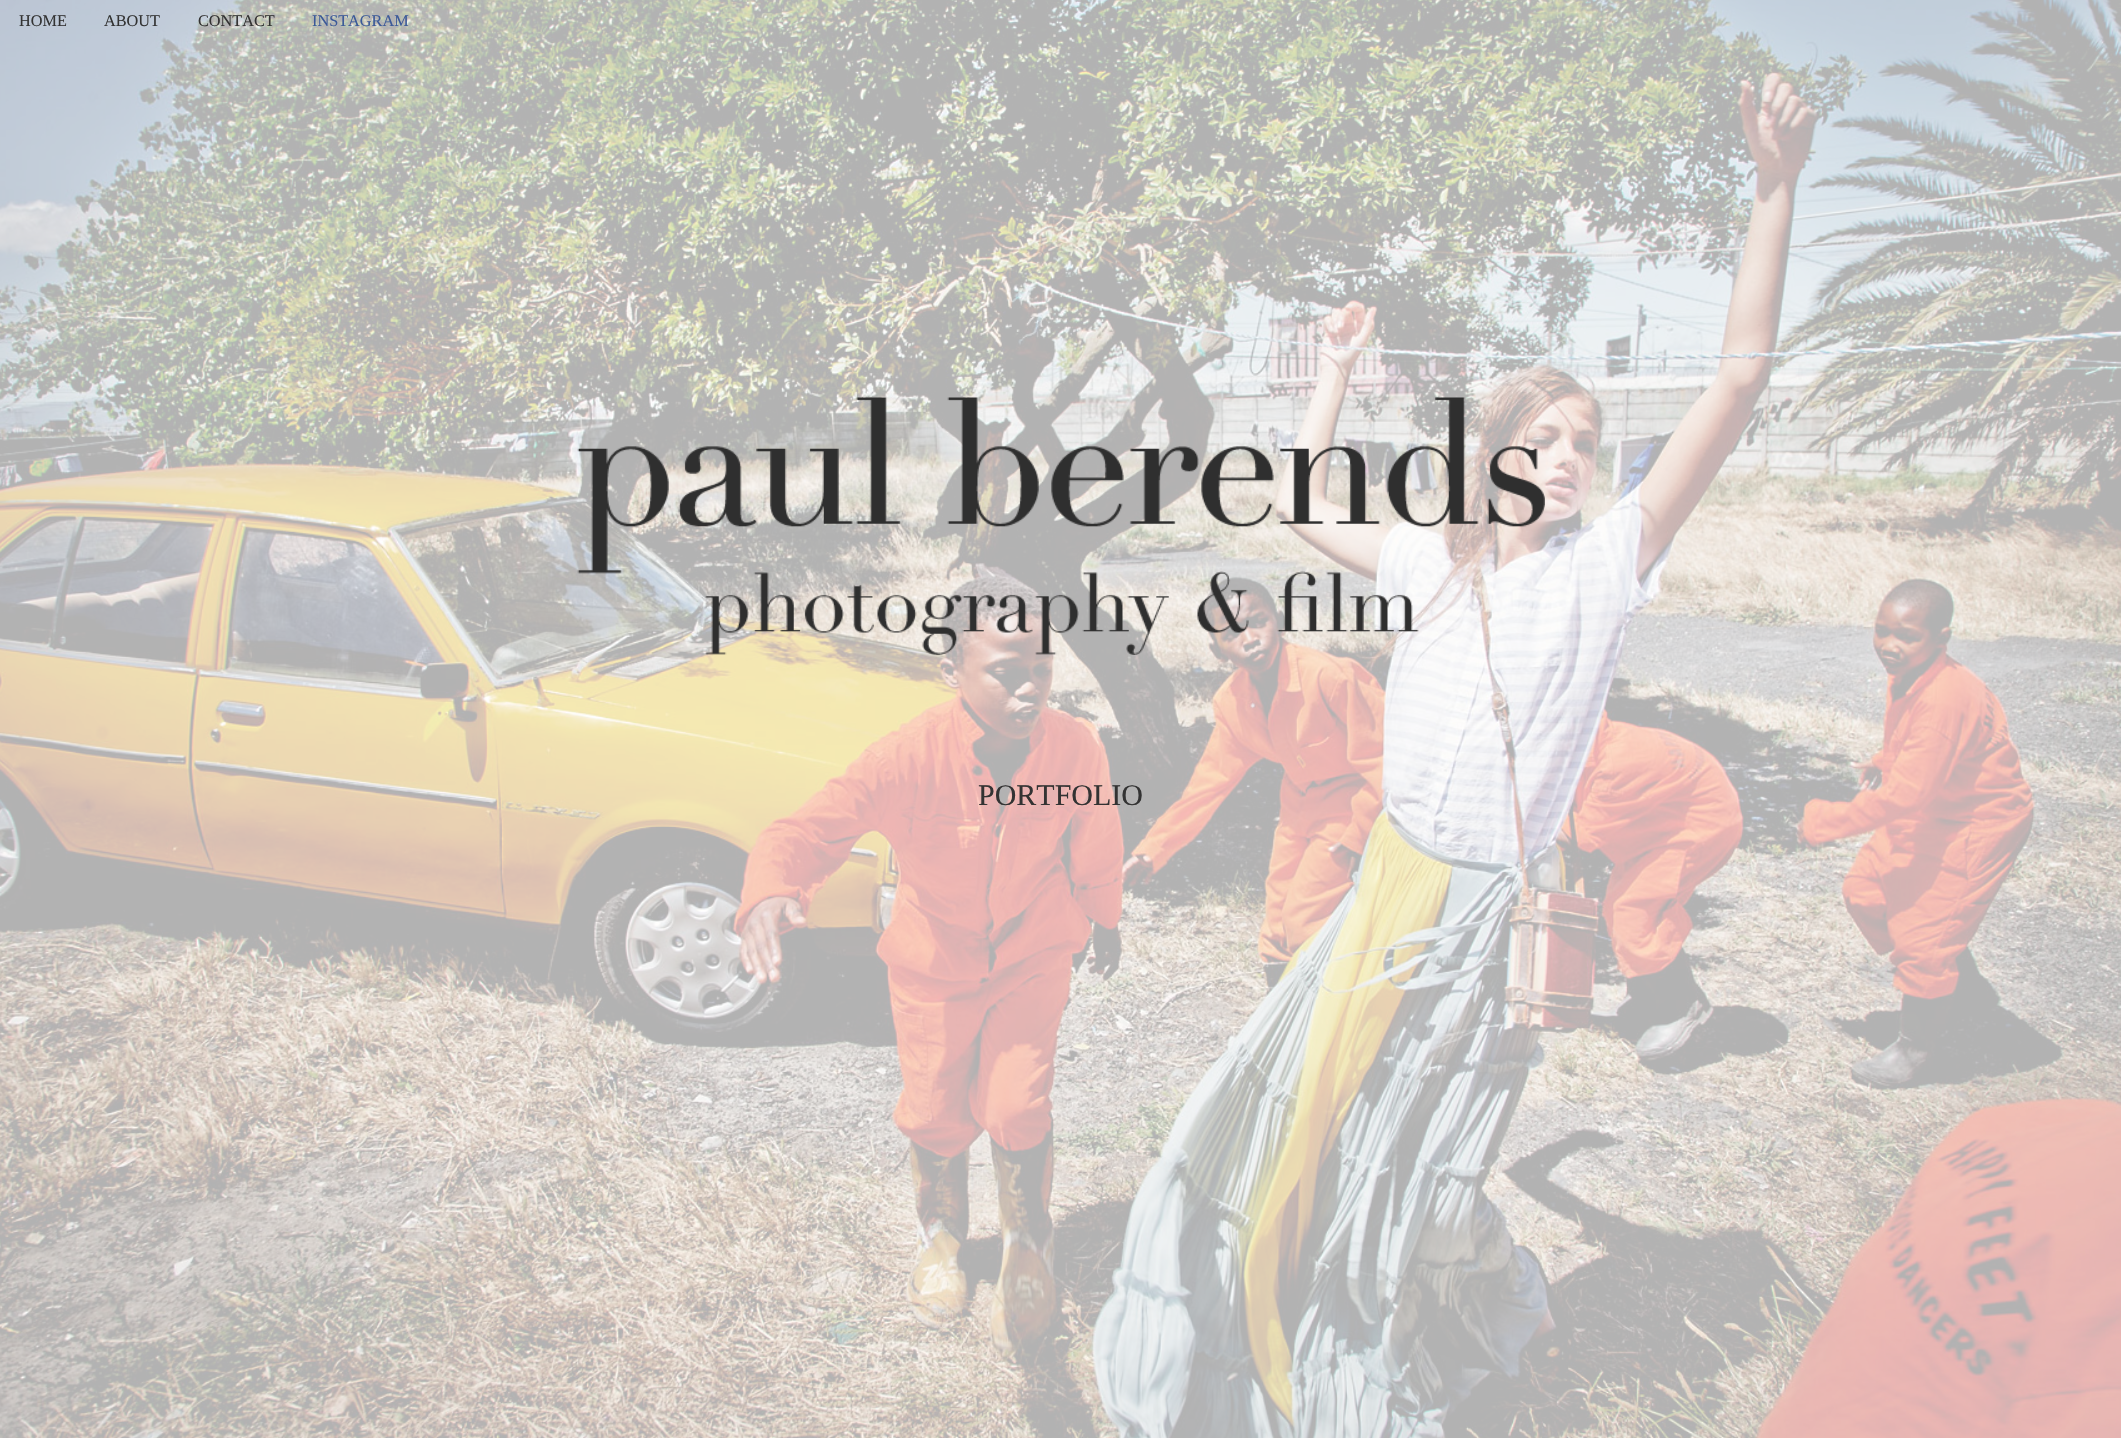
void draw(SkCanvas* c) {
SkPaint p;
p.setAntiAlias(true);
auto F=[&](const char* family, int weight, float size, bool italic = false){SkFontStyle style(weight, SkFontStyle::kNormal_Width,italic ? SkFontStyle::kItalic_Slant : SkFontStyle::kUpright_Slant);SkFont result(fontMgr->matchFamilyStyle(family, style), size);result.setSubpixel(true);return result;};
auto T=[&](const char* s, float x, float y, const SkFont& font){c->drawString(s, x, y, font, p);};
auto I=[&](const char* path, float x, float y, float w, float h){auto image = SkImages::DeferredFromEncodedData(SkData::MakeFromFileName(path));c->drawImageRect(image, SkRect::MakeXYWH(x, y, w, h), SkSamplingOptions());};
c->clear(0xffffffff);
I("1.png",0,0,2121,1438);
auto f1 = F("Liberation Serif",400,16.25);
p.setColor(0xff333333);
T("HOME",19,26,f1);
T("ABOUT",104,26,f1);
T("CONTACT",198,26,f1);
p.setColor(0xff3b5998);
T("INSTAGRAM",312,26,f1);
I("2.png",577,397,968,258);
auto f2 = F("Liberation Serif",400,30);
p.setColor(0xff333333);
T("PORTFOLIO",978,805,f2);
}
